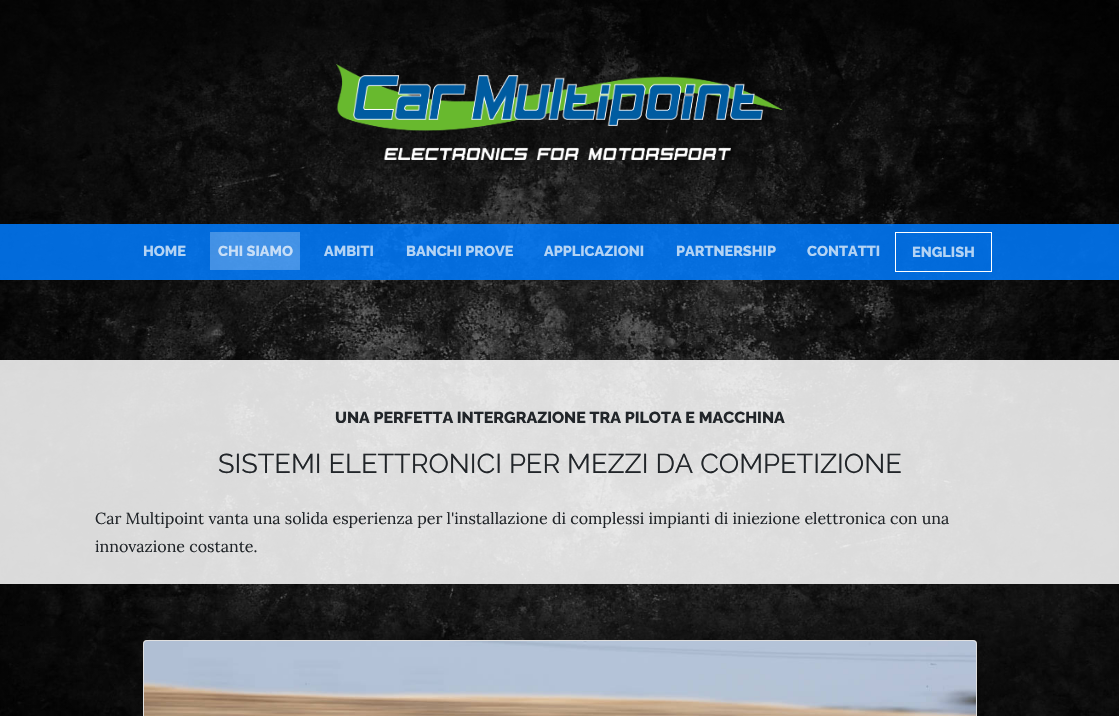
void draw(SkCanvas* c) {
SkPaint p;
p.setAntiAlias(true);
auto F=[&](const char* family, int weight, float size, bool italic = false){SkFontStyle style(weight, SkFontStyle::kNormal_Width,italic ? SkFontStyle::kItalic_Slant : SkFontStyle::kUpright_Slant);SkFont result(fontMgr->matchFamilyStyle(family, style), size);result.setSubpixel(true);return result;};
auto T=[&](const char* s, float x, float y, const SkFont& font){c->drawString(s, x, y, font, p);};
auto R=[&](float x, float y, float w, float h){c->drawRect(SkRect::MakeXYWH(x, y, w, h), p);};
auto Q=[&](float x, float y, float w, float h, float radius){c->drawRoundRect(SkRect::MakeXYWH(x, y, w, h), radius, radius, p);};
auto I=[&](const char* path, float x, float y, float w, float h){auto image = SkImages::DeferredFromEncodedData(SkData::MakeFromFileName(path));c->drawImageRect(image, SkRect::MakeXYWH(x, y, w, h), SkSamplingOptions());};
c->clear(0xffffffff);
I("1.png",0,0,1119,716);
I("2.png",336,64,447,96);
p.setColor(0xd9007bff);
R(0,224,1119,56);
auto f1 = F("Raleway",800,14.5);
p.setColor(0xffb3d3f4);
T("HOME",143,256,f1);
p.setColor(0x40ffffff);
R(210,232,90,38);
p.setColor(0xffc7def7);
T("CHI SIAMO",218,256,f1);
p.setColor(0xffb3d3f4);
T("AMBITI",324,256,f1);
T("BANCHI PROVE",406,256,f1);
T("APPLICAZIONI",544,256,f1);
T("PARTNERSHIP",676,256,f1);
T("CONTATTI",807,256,f1);
p.setStroke(true);
p.setStrokeWidth(1);
p.setColor(0xffffffff);
c->drawRect(SkRect::MakeXYWH(895.5,232.5,96,39),p);
p.setStroke(false);
p.setColor(0xffb3d3f4);
T("ENGLISH",912,257,f1);
p.setColor(0xd9ffffff);
R(0,360,1119,224);
auto f2 = F("Raleway",800,16);
p.setColor(0xff212529);
T("UNA PERFETTA INTERGRAZIONE TRA PILOTA E MACCHINA",335,423,f2);
auto f3 = F("Raleway",400,27.2);
T("SISTEMI ELETTRONICI PER MEZZI DA COMPETIZIONE",218,473,f3);
auto f4 = F("Lora",400,16);
T("Car Multipoint vanta una solida esperienza per l'installazione di complessi impianti di iniezione elettronica con una",95,524,f4);
T("innovazione costante.",95,552,f4);
p.setColor(0xffffffff);
Q(143,640,834,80,4);
p.setStroke(true);
p.setColor(0x1f000000);
c->drawRoundRect(SkRect::MakeXYWH(143.5,640.5,833,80),3.5,3.5,p);
I("3.png",144,641,832,75);
}
